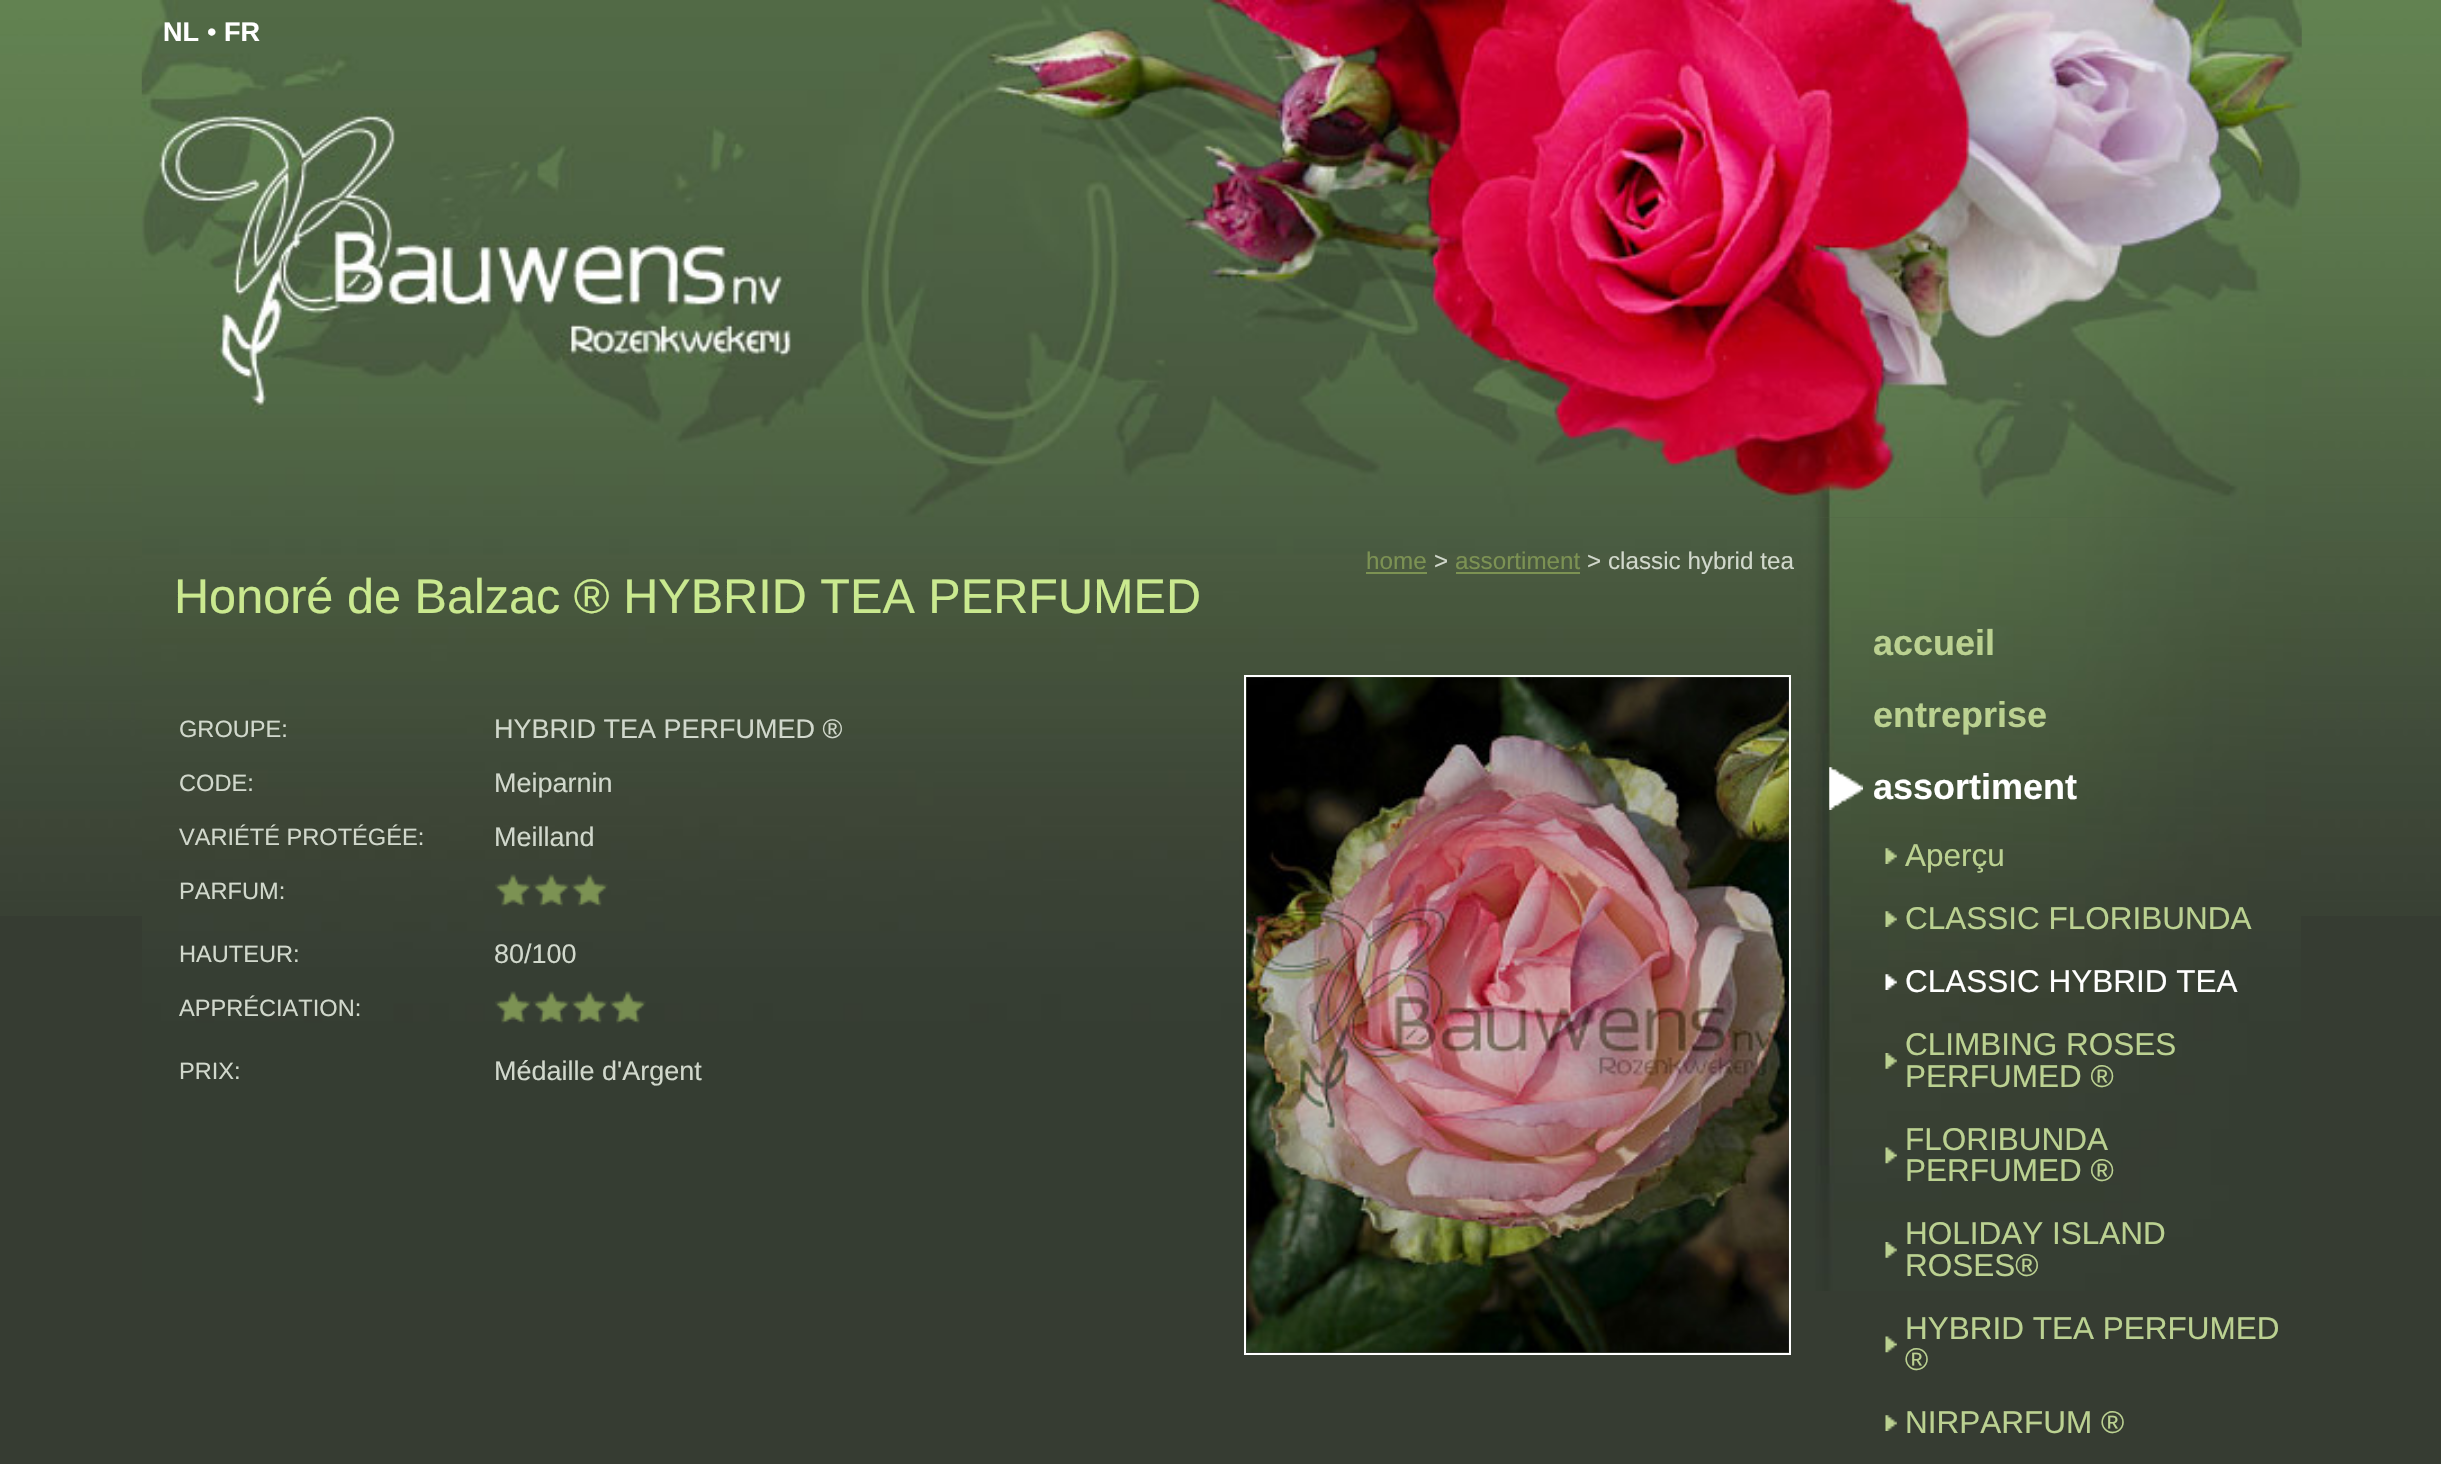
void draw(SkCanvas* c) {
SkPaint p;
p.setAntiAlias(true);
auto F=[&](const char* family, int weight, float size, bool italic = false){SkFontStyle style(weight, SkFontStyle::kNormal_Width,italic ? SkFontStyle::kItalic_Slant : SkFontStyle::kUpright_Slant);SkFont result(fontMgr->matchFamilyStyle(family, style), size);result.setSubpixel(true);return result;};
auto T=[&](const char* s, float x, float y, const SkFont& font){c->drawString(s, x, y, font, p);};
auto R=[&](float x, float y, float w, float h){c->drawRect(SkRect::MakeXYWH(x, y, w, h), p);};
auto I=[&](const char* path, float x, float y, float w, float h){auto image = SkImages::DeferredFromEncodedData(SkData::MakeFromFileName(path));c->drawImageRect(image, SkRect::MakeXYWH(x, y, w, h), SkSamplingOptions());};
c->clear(0xff363c32);
I("1.png",0,0,2441,916);
I("2.png",141,0,2161,518);
auto f1 = F("Liberation Sans",700,27);
p.setColor(0xffffffff);
T("NL",163,41,f1);
auto f2 = F("Liberation Sans",400,27);
T("•",207,41,f2);
T("FR",224,41,f1);
I("3.png",142,517,2159,774);
auto f3 = F("Liberation Sans",400,24.25);
p.setColor(0xff7c9253);
T("home",1366,569,f3);
R(1366,572,61,2);
p.setColor(0xffd1d8cc);
T(">",1434,569,f3);
p.setColor(0xff7c9253);
T("assortiment",1455,569,f3);
R(1456,572,124,2);
p.setColor(0xffd1d8cc);
T("> classic hybrid tea",1587,569,f3);
auto f4 = F("Liberation Sans",400,48.6);
p.setColor(0xffcae98f);
T("Honoré de Balzac ® HYBRID TEA PERFUMED",174,613,f4);
auto f5 = F("Liberation Sans",400,23.6);
p.setColor(0xffd1d8cc);
T("GROUPE:",179,737,f5);
T("HYBRID TEA PERFUMED ®",494,738,f2);
T("CODE:",179,791,f5);
T("Meiparnin",494,792,f2);
T("VARIÉTÉ PROTÉGÉE:",179,845,f5);
T("Meilland",494,846,f2);
T("PARFUM:",179,899,f5);
I("4.png",495,874,36,33);
I("5.png",533,874,37,33);
I("6.png",571,874,37,33);
T("HAUTEUR:",179,962,f5);
T("80/100",494,963,f2);
T("APPRÉCIATION:",179,1016,f5);
I("7.png",495,991,36,33);
I("8.png",533,991,37,33);
I("9.png",571,991,37,33);
I("10.png",610,991,36,33);
T("PRIX:",179,1079,f5);
T("Médaille d'Argent",494,1080,f2);
p.setStroke(true);
p.setStrokeWidth(2);
p.setColor(0xffffffff);
c->drawRect(SkRect::MakeXYWH(1245,676,545,678),p);
I("11.png",1246,677,543,676);
auto f6 = F("Liberation Sans",700,36);
p.setStroke(false);
p.setColor(0xffbbd191);
T("accueil",1873,655,f6);
T("entreprise",1873,727,f6);
I("12.png",1829,767,34,43);
p.setColor(0xffffffff);
T("assortiment",1873,799,f6);
I("13.png",1885,848,12,16);
auto f7 = F("Liberation Sans",400,31.5);
p.setColor(0xffbbd191);
T("Aperçu",1905,866,f7);
I("14.png",1885,911,12,16);
T("CLASSIC FLORIBUNDA",1905,929,f7);
I("15.png",1885,974,12,16);
p.setColor(0xffffffff);
T("CLASSIC HYBRID TEA",1905,992,f7);
I("16.png",1885,1053,12,16);
p.setColor(0xffbbd191);
T("CLIMBING ROSES",1905,1055,f7);
T("PERFUMED ®",1905,1087,f7);
I("17.png",1885,1147,12,17);
T("FLORIBUNDA",1905,1150,f7);
T("PERFUMED ®",1905,1181,f7);
I("18.png",1885,1242,12,16);
T("HOLIDAY ISLAND",1905,1244,f7);
T("ROSES®",1905,1276,f7);
I("19.png",1885,1336,12,17);
T("HYBRID TEA PERFUMED",1905,1339,f7);
T("®",1905,1370,f7);
I("20.png",1885,1415,12,16);
T("NIRPARFUM ®",1905,1433,f7);
}
